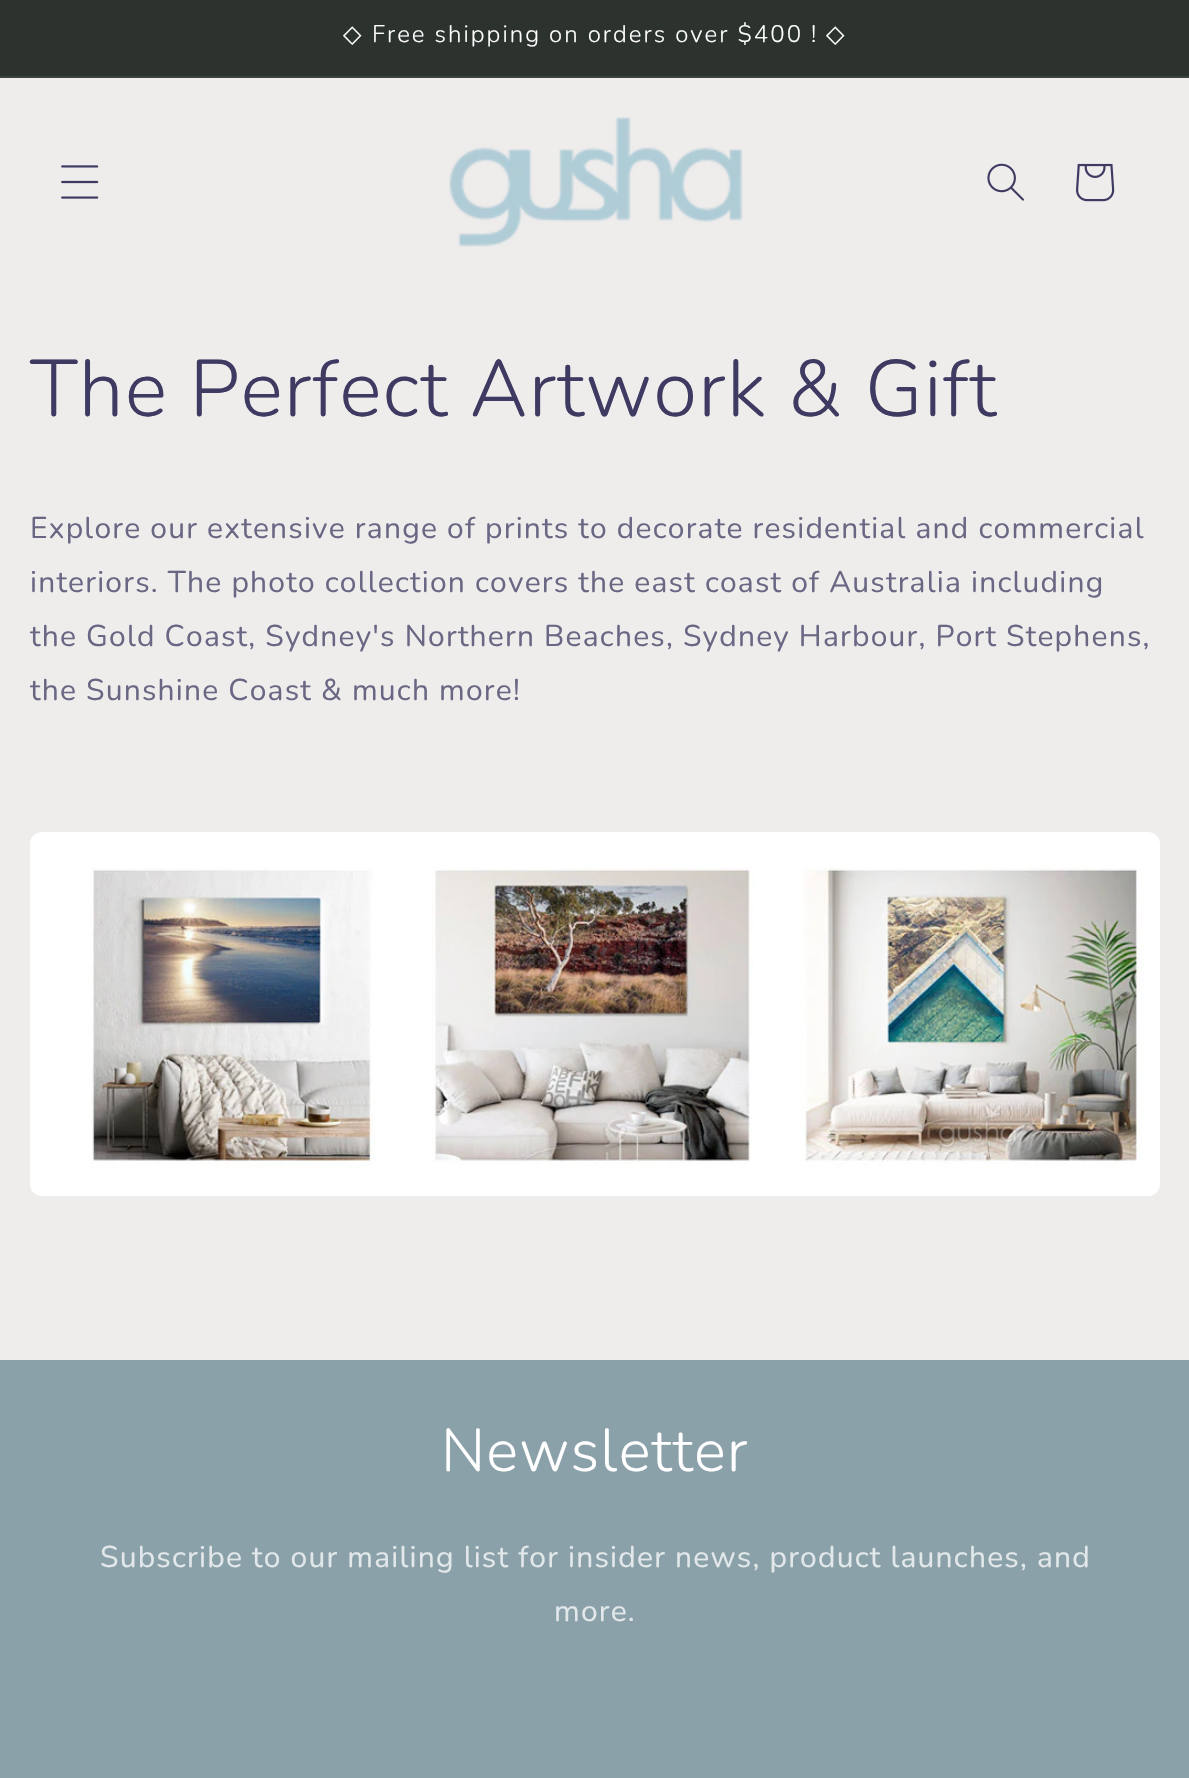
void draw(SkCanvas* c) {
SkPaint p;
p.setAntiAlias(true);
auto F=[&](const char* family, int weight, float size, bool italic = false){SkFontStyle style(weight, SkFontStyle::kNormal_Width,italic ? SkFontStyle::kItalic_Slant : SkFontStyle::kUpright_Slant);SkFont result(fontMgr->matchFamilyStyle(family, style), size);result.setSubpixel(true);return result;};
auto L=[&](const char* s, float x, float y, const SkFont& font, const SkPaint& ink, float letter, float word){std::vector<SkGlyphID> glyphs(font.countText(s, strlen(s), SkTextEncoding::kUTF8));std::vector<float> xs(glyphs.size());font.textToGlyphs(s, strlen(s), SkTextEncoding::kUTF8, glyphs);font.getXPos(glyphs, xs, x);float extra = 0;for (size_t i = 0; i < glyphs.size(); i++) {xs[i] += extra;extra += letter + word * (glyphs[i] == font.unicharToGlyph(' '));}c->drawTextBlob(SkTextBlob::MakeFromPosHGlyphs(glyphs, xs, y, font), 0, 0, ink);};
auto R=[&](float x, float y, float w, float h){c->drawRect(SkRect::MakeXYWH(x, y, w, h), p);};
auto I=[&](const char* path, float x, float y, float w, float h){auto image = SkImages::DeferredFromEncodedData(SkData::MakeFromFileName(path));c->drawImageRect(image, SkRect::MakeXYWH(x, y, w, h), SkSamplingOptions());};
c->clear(0xffefecec);
p.setColor(0xff2c332f);
R(0,0,1189,76);
p.setColor(0xff3d4340);
R(0,76,1189,2);
auto f1 = F("DejaVu Sans",400,24);
p.setColor(0xffffffff);
L("◇",343,42,f1,p,2,0);
auto f2 = F("Nunito",300,24);
L("Free shipping on orders over $400 !",372,42,f2,p,2,0);
L("◇",826,42,f1,p,2,0);
I("1.png",61,165,38,34);
I("2.png",449,117,294,130);
I("3.png",987,163,37,38);
I("4.png",1076,163,39,39);
auto f3 = F("Nunito",300,80);
p.setColor(0xff3e3a61);
L("The Perfect Artwork & Gift",30,416,f3,p,1.2,0);
auto f4 = F("Nunito",400,30);
p.setColor(0xff6a6784);
L("Explore our extensive range of prints to decorate residential and commercial",30,538,f4,p,1.2,0);
L("interiors. The photo collection covers the east coast of Australia including",30,592,f4,p,1.2,0);
L("the Gold Coast, Sydney's Northern Beaches, Sydney Harbour, Port Stephens,",30,646,f4,p,1.2,0);
L("the Sunshine Coast & much more!",30,700,f4,p,1.2,0);
I("5.png",30,832,1130,364);
p.setColor(0xff8ba1a9);
R(0,1360,1189,418);
auto f5 = F("Nunito",300,60);
p.setColor(0xffffffff);
L("Newsletter",441,1471,f5,p,1.2,0);
p.setColor(0xffe2e8ea);
L("Subscribe to our mailing list for insider news, product launches, and",100,1567,f4,p,1.2,0);
L("more.",554,1621,f4,p,1.2,0);
}
